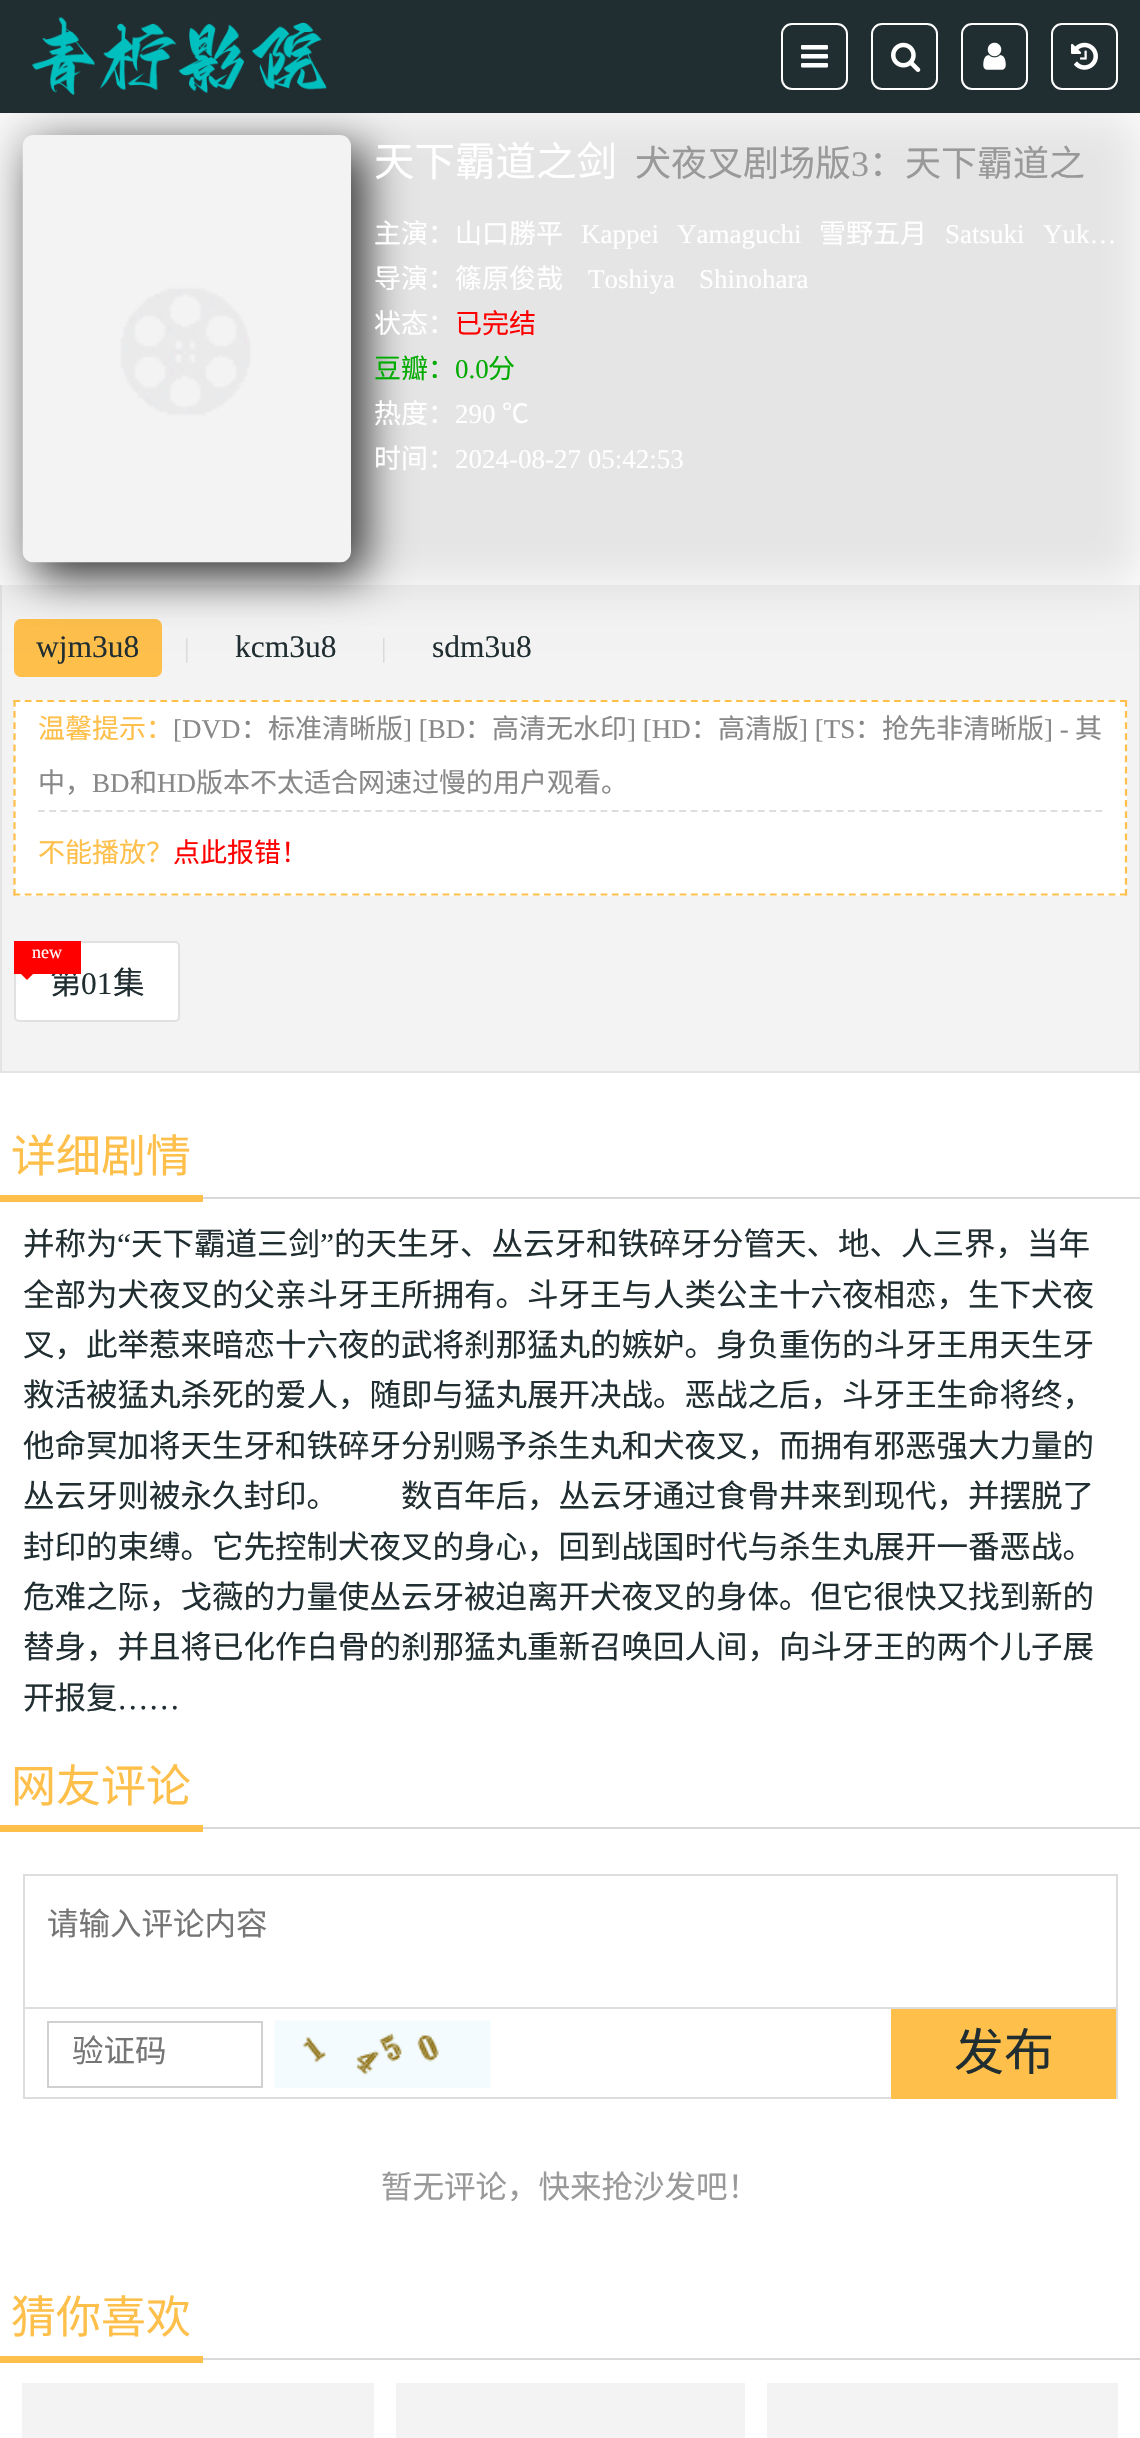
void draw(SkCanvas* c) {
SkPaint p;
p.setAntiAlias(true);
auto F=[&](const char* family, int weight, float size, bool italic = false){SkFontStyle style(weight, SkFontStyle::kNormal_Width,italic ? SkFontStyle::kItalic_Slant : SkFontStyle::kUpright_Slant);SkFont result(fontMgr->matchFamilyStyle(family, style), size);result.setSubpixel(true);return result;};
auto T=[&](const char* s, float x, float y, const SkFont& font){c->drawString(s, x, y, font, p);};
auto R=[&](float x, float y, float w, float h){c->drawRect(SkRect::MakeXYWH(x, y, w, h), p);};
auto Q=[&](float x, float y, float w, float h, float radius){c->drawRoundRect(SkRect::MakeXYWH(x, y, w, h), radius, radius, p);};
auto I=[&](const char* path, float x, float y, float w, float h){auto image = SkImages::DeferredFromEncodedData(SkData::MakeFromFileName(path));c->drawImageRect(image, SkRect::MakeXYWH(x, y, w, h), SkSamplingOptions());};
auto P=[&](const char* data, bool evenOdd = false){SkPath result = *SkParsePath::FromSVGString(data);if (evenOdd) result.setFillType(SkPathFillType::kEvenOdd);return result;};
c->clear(0xffffffff);
p.setColor(0xfff3f3f3);
R(2,585,1137,486);
p.setColor(0xffe3e3e3);
R(1139,585,1,488);
R(0,1071,1140,2);
R(0,585,2,488);
p.setColor(0xfffebf4b);
Q(14,619,148,58,7);
p.setColor(0x1a000000);
p.setMaskFilter(SkMaskFilter::MakeBlur(kNormal_SkBlurStyle, 22.5));
c->drawRect(SkRect::MakeXYWH(0,113,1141,472),p);
p.setMaskFilter(nullptr);
p.setColor(0xff333333);
p.setMaskFilter(SkMaskFilter::MakeBlur(kNormal_SkBlurStyle, 22.5));
c->drawRoundRect(SkRect::MakeXYWH(36,149,329,427),11,11,p);
p.setMaskFilter(nullptr);
p.setColor(0xff202e31);
R(0,0,1140,113);
I("1.png",31,17,296,78);
p.setStroke(true);
p.setStrokeWidth(2);
p.setColor(0xffffffff);
c->drawRoundRect(SkRect::MakeXYWH(782,24,65,65),10,10,p);
I("2.png",801,45,27,23);
c->drawRoundRect(SkRect::MakeXYWH(872,24,65,65),10,10,p);
I("3.png",891,42,30,30);
c->drawRoundRect(SkRect::MakeXYWH(962,24,65,65),10,10,p);
I("4.png",983,42,23,28);
c->drawRoundRect(SkRect::MakeXYWH(1052,24,65,65),10,10,p);
I("5.png",1071,42,27,28);
I("6.png",22,135,329,428);
auto f1 = F("Noto Sans CJK SC",400,40.5);
p.setStroke(false);
T("天下霸道之剑",374,176,f1);
auto f2 = F("Noto Sans CJK SC",400,36);
p.setColor(0xff999999);
T("犬夜叉剧场版",635,176,f2);
auto f3 = F("Liberation Serif",400,36);
T("3",851,176,f3);
T("：天下霸道之",869,176,f2);
auto f4 = F("Noto Sans CJK SC",400,27);
p.setColor(0xffffffff);
T("主演：山口勝平",374,243,f4);
auto f5 = F("Liberation Serif",400,27);
T("Kappei",581,243,f5);
T("Yamaguchi",677,243,f5);
T("雪野五月",819,243,f4);
T("Satsuki",945,243,f5);
T("Yuk…",1043,243,f5);
T("导演：篠原俊哉",374,288,f4);
T("Toshiya",588,288,f5);
T("Shinohara",699,288,f5);
T("状态：",374,333,f4);
p.setColor(0xffff0000);
T("已完结",455,333,f4);
p.setColor(0xff00ab00);
T("豆瓣：",374,378,f4);
T("0.0",455,378,f5);
T("分",488,378,f4);
p.setColor(0xffffffff);
T("热度：",374,423,f4);
T("290",455,423,f5);
T("℃",502,423,f4);
T("时间：",374,468,f4);
T("2024-08-27 05:42:53",455,468,f5);
auto f6 = F("Liberation Serif",400,31.5);
p.setColor(0xff202e31);
T("wjm3u8",36,657,f6);
p.setColor(0xffdadada);
T("|",184,657,f5);
p.setColor(0xff202e31);
T("kcm3u8",235,657,f6);
p.setColor(0xffdadada);
T("|",381,657,f5);
p.setColor(0xff202e31);
T("sdm3u8",432,657,f6);
p.setColor(0xffffffff);
R(14,700,1113,196);
p.setStroke(true);
p.setStrokeWidth(2.2);
p.setColor(0xfffebf4b);
p.setPathEffect(SkDashPathEffect::Make({{6.75f,4.54f}}, 0));
c->drawPath(P("M13.5 701h1113.5"),p);
p.setPathEffect(nullptr);
p.setPathEffect(SkDashPathEffect::Make({{6.75f,4.37f}}, 0));
c->drawPath(P("M1126 700v195.5"),p);
p.setPathEffect(nullptr);
p.setPathEffect(SkDashPathEffect::Make({{6.75f,4.54f}}, 0));
c->drawPath(P("M13.5 894.5h1113.5"),p);
p.setPathEffect(nullptr);
p.setPathEffect(SkDashPathEffect::Make({{6.75f,4.37f}}, 0));
c->drawPath(P("M14.5 700v195.5"),p);
p.setPathEffect(nullptr);
p.setColor(0xffdddddd);
p.setPathEffect(SkDashPathEffect::Make({{6.75f,4.5f}}, 0));
c->drawPath(P("M38 811h1064.5"),p);
p.setPathEffect(nullptr);
p.setStroke(false);
p.setColor(0xfffebf4b);
T("温馨提示：",38,738,f4);
p.setColor(0xff888888);
T("[DVD",173,738,f5);
T("：标准清晰版",241,738,f4);
T("] [BD",403,738,f5);
T("：高清无水印",465,738,f4);
T("] [HD",627,738,f5);
T("：高清版",691,738,f4);
T("] [TS",799,738,f5);
T("：抢先非清晰版",855,738,f4);
T("] -",1044,738,f5);
T("其",1075,738,f4);
T("中，",38,792,f4);
T("BD",92,792,f5);
T("和",130,792,f4);
T("HD",157,792,f5);
T("版本不太适合网速过慢的用户观看。",196,792,f4);
p.setColor(0xfffebf4b);
T("不能播放？",38,862,f4);
p.setColor(0xffff0000);
T("点此报错！",173,862,f4);
p.setColor(0xffffffff);
c->drawRoundRect(SkRect::MakeXYWH(15,942,164,79),4,4,p);
p.setStroke(true);
p.setStrokeWidth(2);
p.setColor(0xffe1e1e1);
c->drawRoundRect(SkRect::MakeXYWH(15,942,164,79),4,4,p);
p.setStroke(false);
p.setColor(0xffff0000);
c->drawPath(P("M14.5 967.5l12.5-13l12.5 13l-12.5 12.5z"),p);
auto f7 = F("Noto Sans CJK SC",400,31.5);
p.setColor(0xff202e31);
T("第",50,994,f7);
p.setColor(0xffff0000);
R(14,941,67,33);
auto f8 = F("Liberation Serif",400,18);
p.setColor(0xffffffff);
T("new",32,958,f8);
p.setColor(0xff202e31);
T("01",81,994,f6);
T("集",113,994,f7);
p.setColor(0xffd9d9d9);
R(203,1197,937,2);
p.setColor(0xfffebf4b);
R(0,1195,203,7);
auto f9 = F("Noto Sans CJK SC",400,45);
T("详细剧情",11,1172,f9);
p.setColor(0xff202e31);
T("并称为",23,1255,f7);
T("“",117,1255,f6);
T("天下霸道三剑",131,1255,f7);
T("”",320,1255,f6);
T("的天生牙、丛云牙和铁碎牙分管天、地、人三界，当年",334,1255,f7);
T("全部为犬夜叉的父亲斗牙王所拥有。斗牙王与人类公主十六夜相恋，生下犬夜",23,1306,f7);
T("叉，此举惹来暗恋十六夜的武将刹那猛丸的嫉妒。身负重伤的斗牙王用天生牙",23,1356,f7);
T("救活被猛丸杀死的爱人，随即与猛丸展开决战。恶战之后，斗牙王生命将终，",23,1406,f7);
T("他命冥加将天生牙和铁碎牙分别赐予杀生丸和犬夜叉，而拥有邪恶强大力量的",23,1457,f7);
T("丛云牙则被永久封印。　　数百年后，丛云牙通过食骨井来到现代，并摆脱了",23,1507,f7);
T("封印的束缚。它先控制犬夜叉的身心，回到战国时代与杀生丸展开一番恶战。",23,1558,f7);
T("危难之际，戈薇的力量使丛云牙被迫离开犬夜叉的身体。但它很快又找到新的",23,1608,f7);
T("替身，并且将已化作白骨的刹那猛丸重新召唤回人间，向斗牙王的两个儿子展",23,1658,f7);
T("开报复",23,1709,f7);
T("……",117,1709,f6);
p.setColor(0xffd9d9d9);
R(203,1827,937,2);
p.setColor(0xfffebf4b);
R(0,1825,203,7);
T("网友评论",11,1802,f9);
p.setStroke(true);
p.setColor(0xffdddddd);
c->drawRect(SkRect::MakeXYWH(24,1875,1093,133),p);
p.setStroke(false);
p.setColor(0xff757575);
T("请输入评论内容",47,1935,f7);
p.setColor(0xffdddddd);
R(1116,2009,2,90);
R(23,2097,1095,2);
R(23,2009,2,90);
p.setStroke(true);
p.setColor(0xffd0d0d0);
c->drawRect(SkRect::MakeXYWH(48,2022,214,65),p);
p.setStroke(false);
p.setColor(0xff757575);
T("验证码",72,2062,f7);
I("7.png",274,2020,217,68);
p.setColor(0xfffebf4b);
R(891,2009,225,90);
auto f10 = F("Noto Sans CJK SC",400,50);
p.setColor(0xff202e31);
T("发布",954,2070,f10);
p.setColor(0xff999999);
T("暂无评论，快来抢沙发吧！",381,2198,f7);
p.setColor(0xffd9d9d9);
R(203,2358,937,2);
p.setColor(0xfffebf4b);
R(0,2356,203,7);
T("猜你喜欢",11,2333,f9);
p.setColor(0xfff3f3f3);
R(22,2383,352,55);
R(396,2383,349,55);
R(767,2383,351,55);
}
